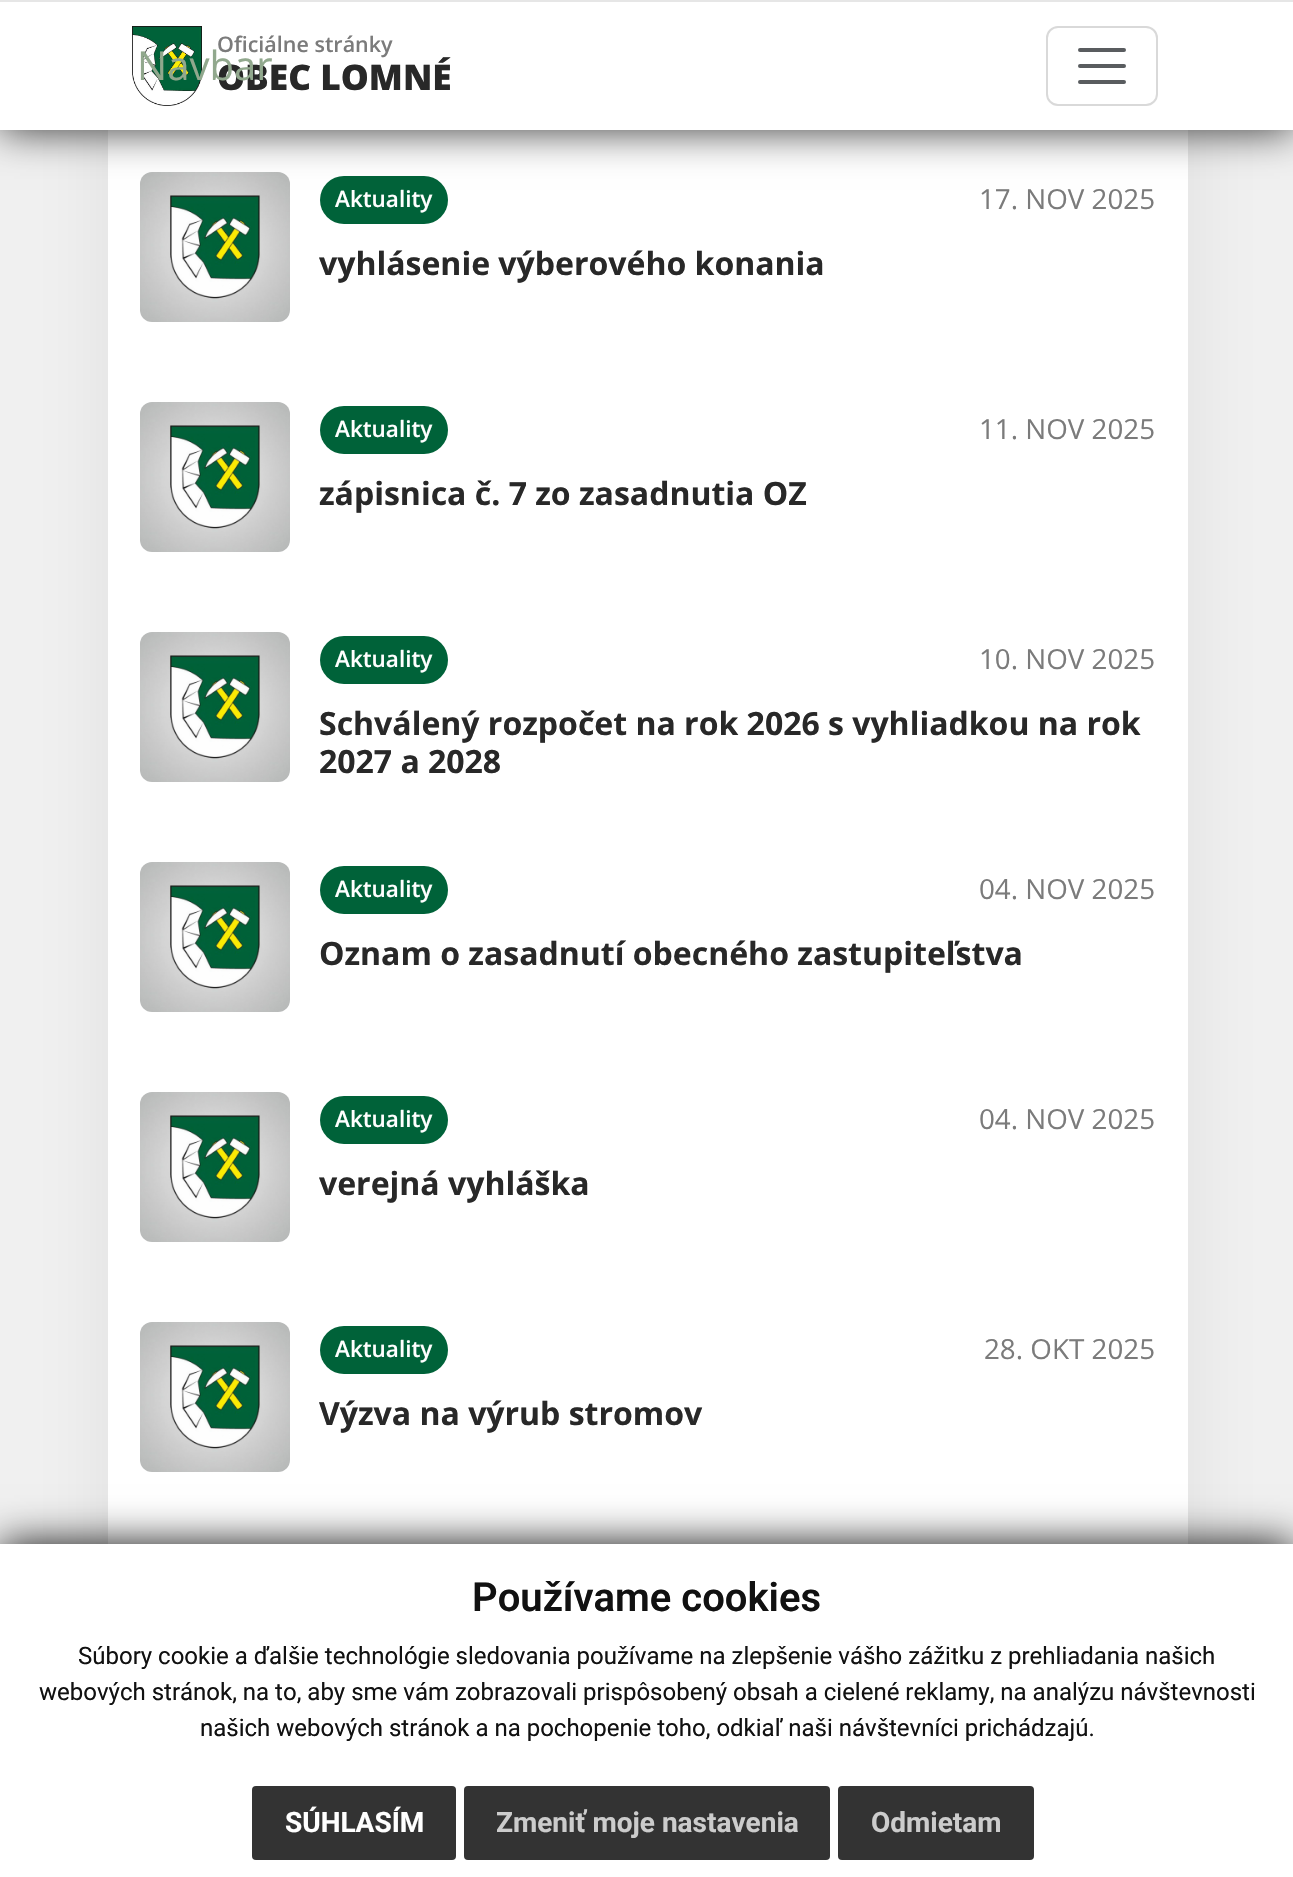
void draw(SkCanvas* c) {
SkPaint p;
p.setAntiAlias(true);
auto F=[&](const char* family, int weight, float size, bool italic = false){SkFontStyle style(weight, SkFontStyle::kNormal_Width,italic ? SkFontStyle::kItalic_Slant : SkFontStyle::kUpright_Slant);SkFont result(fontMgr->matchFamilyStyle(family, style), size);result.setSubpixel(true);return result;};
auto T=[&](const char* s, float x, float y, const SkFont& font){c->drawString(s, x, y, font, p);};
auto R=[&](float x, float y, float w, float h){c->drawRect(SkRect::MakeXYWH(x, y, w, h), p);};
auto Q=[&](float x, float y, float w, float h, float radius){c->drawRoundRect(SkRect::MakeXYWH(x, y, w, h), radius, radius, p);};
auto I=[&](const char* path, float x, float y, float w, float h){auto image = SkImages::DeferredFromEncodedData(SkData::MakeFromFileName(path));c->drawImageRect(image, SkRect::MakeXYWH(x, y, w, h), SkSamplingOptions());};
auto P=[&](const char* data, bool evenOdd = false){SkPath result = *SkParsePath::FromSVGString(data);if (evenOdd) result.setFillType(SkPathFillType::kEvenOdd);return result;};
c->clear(0xfff1f1f1);
p.setColor(0x12000000);
p.setMaskFilter(SkMaskFilter::MakeBlur(kNormal_SkBlurStyle, 40));
c->drawRect(SkRect::MakeXYWH(108,-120,1080,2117),p);
p.setMaskFilter(nullptr);
p.setColor(0xffffffff);
R(108,130,1080,1414);
I("2.png",140,172,150,150);
p.setColor(0xff006239);
Q(320,176,128,48,24);
p.setColor(0xff333333);
p.setMaskFilter(SkMaskFilter::MakeBlur(kNormal_SkBlurStyle, 20));
c->drawRect(SkRect::MakeXYWH(0,0,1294,130),p);
p.setMaskFilter(nullptr);
p.setColor(0xffffffff);
R(0,2,1293,128);
p.setColor(0xffe6e6e6);
R(0,0,1293,2);
I("1.png",132,26,70,80);
auto f1 = F("Open Sans",800,35.25);
p.setColor(0xff282828);
T("OBEC LOMNÉ",217,90,f1);
auto f2 = F("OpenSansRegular",400,40);
p.setColor(0xff91a88d);
T("Navbar",137,80,f2);
p.setStroke(true);
p.setStrokeWidth(2);
p.setColor(0xffd9d9d9);
c->drawRoundRect(SkRect::MakeXYWH(1047,27,110,78),11,11,p);
p.setStrokeWidth(4);
p.setStrokeCap(SkPaint::kRound_Cap);
p.setColor(0xff595c5f);
c->drawPath(P("M1080 50h44m-44 16h44m-44 16h44"),p);
auto f3 = F("Open Sans",600,21.5);
p.setStroke(false);
p.setColor(0xff7b7b7b);
T("Oficiálne stránky",217,52,f3);
auto f4 = F("Open Sans",600,22.5);
p.setColor(0xffffffff);
T("Aktuality",335,207,f4);
auto f5 = F("OpenSansRegular",400,27.75);
p.setColor(0xff7b7b7b);
T("17. NOV 2025",979,209,f5);
auto f6 = F("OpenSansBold",700,32);
p.setColor(0xff282828);
T("vyhlásenie výberového konania",319,275,f6);
I("2.png",140,402,150,150);
p.setColor(0xff006239);
Q(320,406,128,48,24);
p.setColor(0xffffffff);
T("Aktuality",335,437,f4);
p.setColor(0xff7b7b7b);
T("11. NOV 2025",979,439,f5);
p.setColor(0xff282828);
T("zápisnica č. 7 zo zasadnutia OZ",319,505,f6);
I("2.png",140,632,150,150);
p.setColor(0xff006239);
Q(320,636,128,48,24);
p.setColor(0xffffffff);
T("Aktuality",335,667,f4);
p.setColor(0xff7b7b7b);
T("10. NOV 2025",979,669,f5);
p.setColor(0xff282828);
T("Schválený rozpočet na rok 2026 s vyhliadkou na rok",319,735,f6);
T("2027 a 2028",319,773,f6);
I("2.png",140,862,150,150);
p.setColor(0xff006239);
Q(320,866,128,48,24);
p.setColor(0xffffffff);
T("Aktuality",335,897,f4);
p.setColor(0xff7b7b7b);
T("04. NOV 2025",979,899,f5);
p.setColor(0xff282828);
T("Oznam o zasadnutí obecného zastupiteľstva",319,965,f6);
I("2.png",140,1092,150,150);
p.setColor(0xff006239);
Q(320,1096,128,48,24);
p.setColor(0xffffffff);
T("Aktuality",335,1127,f4);
p.setColor(0xff7b7b7b);
T("04. NOV 2025",979,1129,f5);
p.setColor(0xff282828);
T("verejná vyhláška",319,1195,f6);
I("2.png",140,1322,150,150);
p.setColor(0xff006239);
Q(320,1326,128,48,24);
p.setColor(0xffffffff);
T("Aktuality",335,1357,f4);
p.setColor(0xff7b7b7b);
T("28. OKT 2025",984,1359,f5);
p.setColor(0xff282828);
T("Výzva na výrub stromov",319,1425,f6);
p.setColor(0xff111111);
p.setMaskFilter(SkMaskFilter::MakeBlur(kNormal_SkBlurStyle, 20));
c->drawRect(SkRect::MakeXYWH(0,1544,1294,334),p);
p.setMaskFilter(nullptr);
p.setColor(0xffffffff);
R(0,1544,1293,333);
auto f7 = F("Roboto",600,40);
p.setColor(0xff111111);
T("Používame cookies",472,1611,f7);
auto f8 = F("Roboto",400,24);
T("Súbory cookie a ďalšie technológie sledovania používame na zlepšenie vášho zážitku z prehliadania našich",78,1664,f8);
T("webových stránok, na to, aby sme vám zobrazovali prispôsobený obsah a cielené reklamy, na analýzu návštevnosti",39,1700,f8);
T("našich webových stránok a na pochopenie toho, odkiaľ naši návštevníci prichádzajú.",200,1736,f8);
p.setColor(0xff333333);
Q(252,1786,204,74,4);
auto f9 = F("Roboto",700,28);
p.setColor(0xffffffff);
T("SÚHLASÍM",285,1832,f9);
p.setColor(0xff333333);
Q(464,1786,366,74,4);
p.setColor(0xffcccccc);
T("Zmeniť moje nastavenia",496,1832,f9);
p.setColor(0xff333333);
Q(838,1786,196,74,4);
p.setColor(0xffcccccc);
T("Odmietam",871,1832,f9);
}
